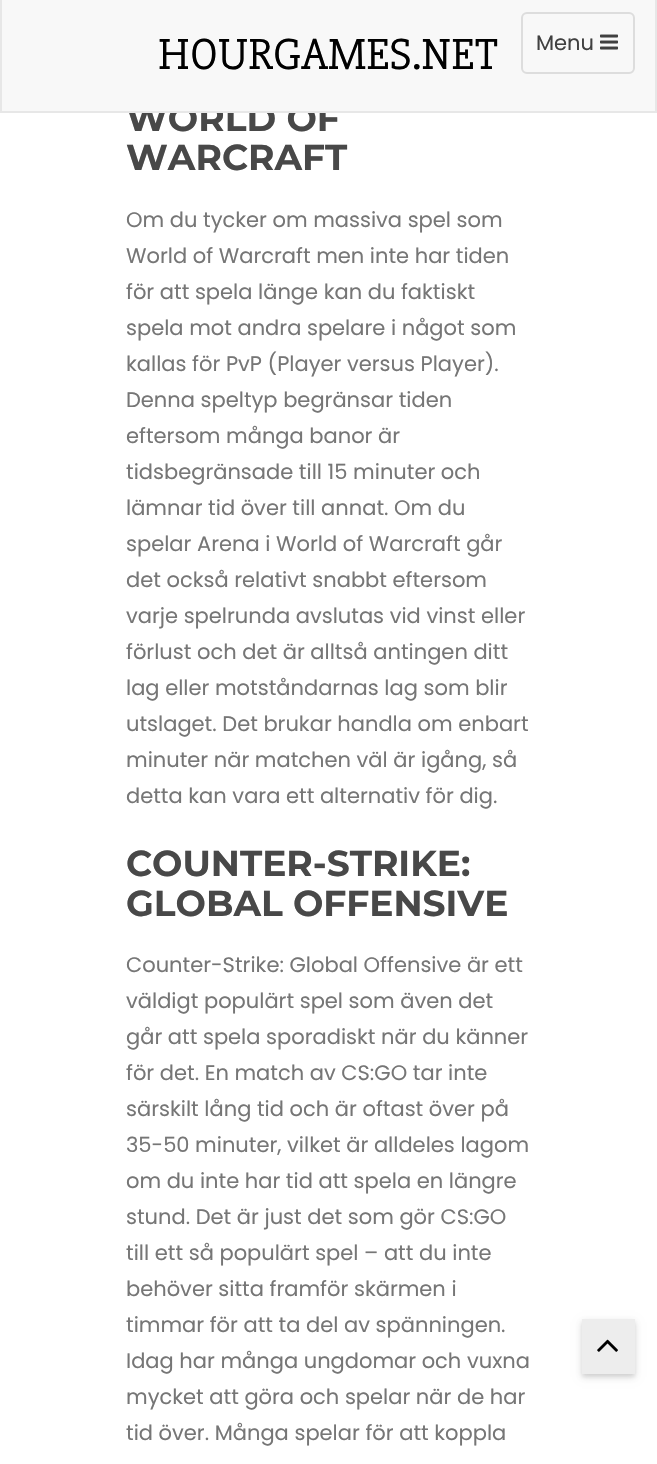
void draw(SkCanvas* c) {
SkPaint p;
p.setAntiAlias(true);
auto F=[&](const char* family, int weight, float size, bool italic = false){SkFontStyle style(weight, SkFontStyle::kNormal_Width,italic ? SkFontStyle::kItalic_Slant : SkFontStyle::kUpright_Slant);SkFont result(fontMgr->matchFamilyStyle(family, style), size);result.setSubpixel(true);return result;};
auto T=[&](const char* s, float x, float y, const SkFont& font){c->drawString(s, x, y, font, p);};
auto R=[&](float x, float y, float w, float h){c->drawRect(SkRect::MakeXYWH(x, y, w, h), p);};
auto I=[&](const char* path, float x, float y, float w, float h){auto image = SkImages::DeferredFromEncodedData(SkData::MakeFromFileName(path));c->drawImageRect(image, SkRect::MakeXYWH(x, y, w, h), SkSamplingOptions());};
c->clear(0xffffffff);
auto f1 = F("Montserrat",700,36);
p.setColor(0xff484848);
T("WORLD OF",126,131,f1);
p.setColor(0xfff8f8f8);
c->drawRect(SkRect::MakeXYWH(1,-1,655,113),p);
p.setStroke(true);
p.setStrokeWidth(2);
p.setColor(0xffe7e7e7);
c->drawRect(SkRect::MakeXYWH(1,-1,655,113),p);
auto f2 = F("Slabo 27px",400,45);
p.setStroke(false);
p.setColor(0xff000000);
T("HOURGAMES.NET",158,69,f2);
p.setStroke(true);
p.setColor(0xffdddddd);
c->drawRoundRect(SkRect::MakeXYWH(522,13,112,60),5,5,p);
auto f3 = F("Poppins",400,21);
p.setStroke(false);
p.setColor(0xff404040);
T("Menu",536,50,f3);
I("1.png",600,34,18,16);
p.setColor(0xff484848);
T("WARCRAFT",126,170,f1);
p.setColor(0xff767676);
T("Om du tycker om massiva spel som",126,227,f3);
T("World of Warcraft men inte har tiden",126,263,f3);
T("för att spela länge kan du faktiskt",126,299,f3);
T("spela mot andra spelare i något som",126,335,f3);
T("kallas för PvP (Player versus Player).",126,371,f3);
T("Denna speltyp begränsar tiden",126,407,f3);
T("eftersom många banor är",126,443,f3);
T("tidsbegränsade till 15 minuter och",126,479,f3);
T("lämnar tid över till annat. Om du",126,515,f3);
T("spelar Arena i World of Warcraft går",126,551,f3);
T("det också relativt snabbt eftersom",126,587,f3);
T("varje spelrunda avslutas vid vinst eller",126,623,f3);
T("förlust och det är alltså antingen ditt",126,659,f3);
T("lag eller motståndarnas lag som blir",126,695,f3);
T("utslaget. Det brukar handla om enbart",126,731,f3);
T("minuter när matchen väl är igång, så",126,767,f3);
T("detta kan vara ett alternativ för dig.",126,803,f3);
p.setColor(0xff484848);
T("COUNTER-STRIKE:",126,876,f1);
T("GLOBAL OFFENSIVE",126,916,f1);
p.setColor(0xff767676);
T("Counter-Strike: Global Offensive är ett",126,972,f3);
T("väldigt populärt spel som även det",126,1008,f3);
T("går att spela sporadiskt när du känner",126,1044,f3);
T("för det. En match av CS:GO tar inte",126,1080,f3);
T("särskilt lång tid och är oftast över på",126,1116,f3);
T("35-50 minuter, vilket är alldeles lagom",126,1152,f3);
T("om du inte har tid att spela en längre",126,1188,f3);
T("stund. Det är just det som gör CS:GO",126,1224,f3);
T("till ett så populärt spel – att du inte",126,1260,f3);
T("behöver sitta framför skärmen i",126,1296,f3);
T("timmar för att ta del av spänningen.",126,1332,f3);
T("Idag har många ungdomar och vuxna",126,1368,f3);
T("mycket att göra och spelar när de har",126,1404,f3);
T("tid över. Många spelar för att koppla",126,1440,f3);
p.setColor(0x1a000000);
p.setMaskFilter(SkMaskFilter::MakeBlur(kNormal_SkBlurStyle, 4));
c->drawRect(SkRect::MakeXYWH(582,1322,53,55),p);
p.setMaskFilter(nullptr);
p.setMaskFilter(SkMaskFilter::MakeBlur(kNormal_SkBlurStyle, 2));
c->drawRect(SkRect::MakeXYWH(582,1322,53,55),p);
p.setMaskFilter(nullptr);
p.setColor(0xffededed);
R(582,1319,53,55);
I("2.png",597,1339,21,13);
}
